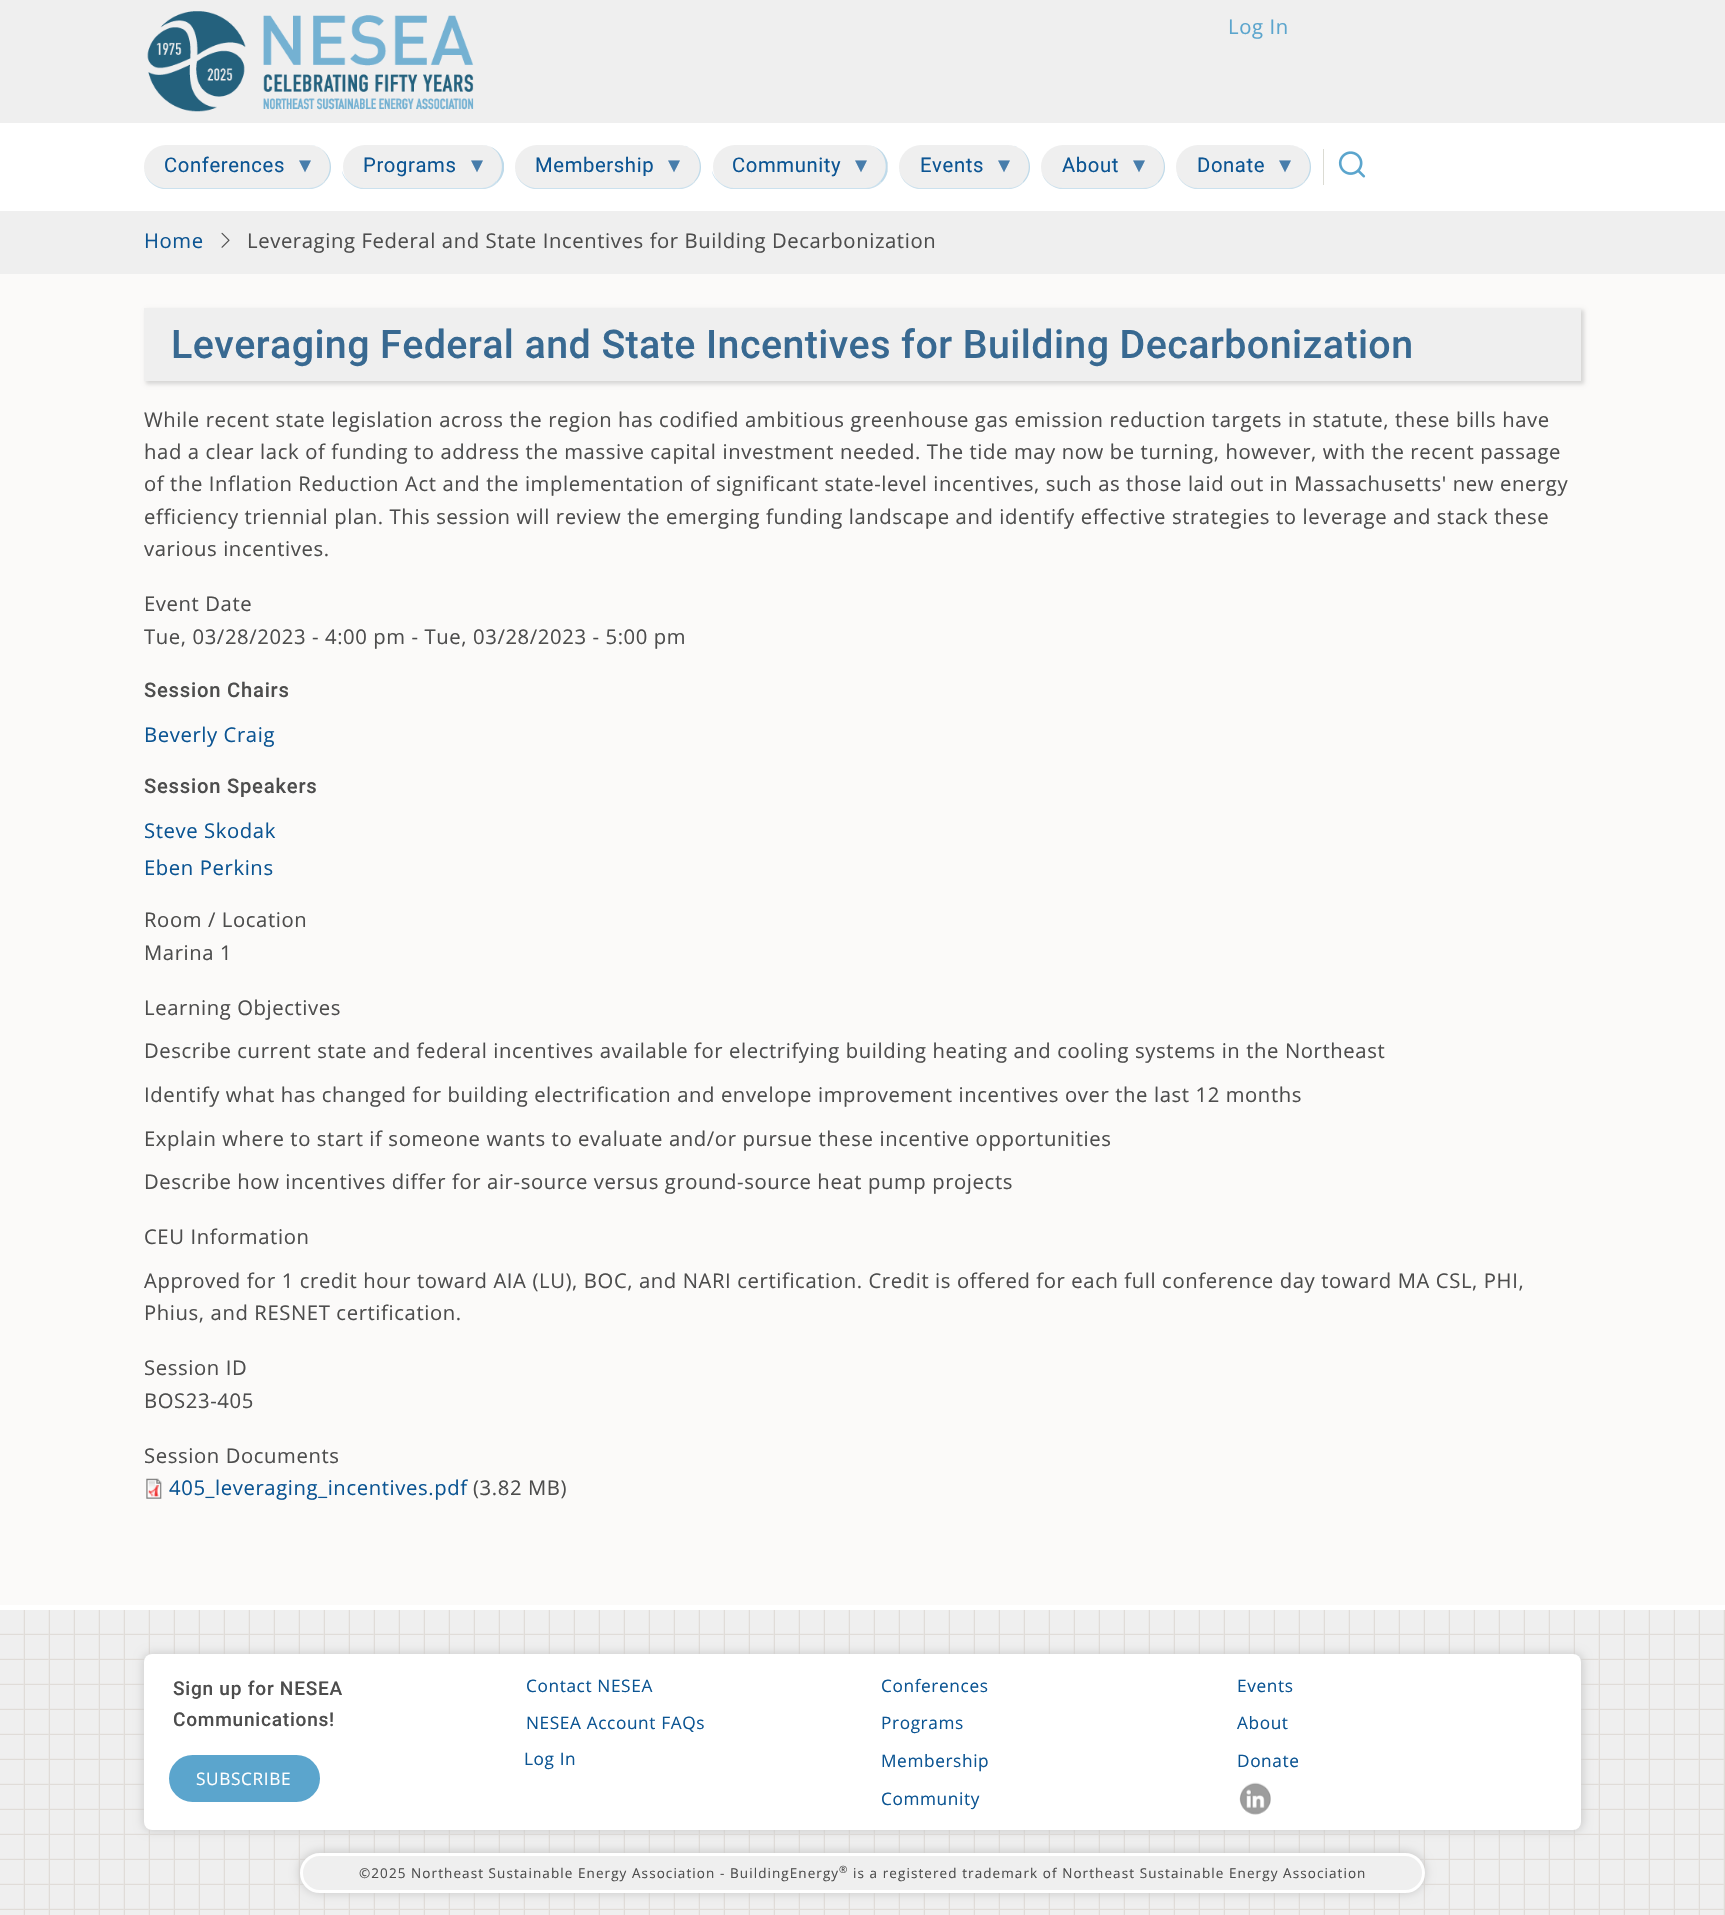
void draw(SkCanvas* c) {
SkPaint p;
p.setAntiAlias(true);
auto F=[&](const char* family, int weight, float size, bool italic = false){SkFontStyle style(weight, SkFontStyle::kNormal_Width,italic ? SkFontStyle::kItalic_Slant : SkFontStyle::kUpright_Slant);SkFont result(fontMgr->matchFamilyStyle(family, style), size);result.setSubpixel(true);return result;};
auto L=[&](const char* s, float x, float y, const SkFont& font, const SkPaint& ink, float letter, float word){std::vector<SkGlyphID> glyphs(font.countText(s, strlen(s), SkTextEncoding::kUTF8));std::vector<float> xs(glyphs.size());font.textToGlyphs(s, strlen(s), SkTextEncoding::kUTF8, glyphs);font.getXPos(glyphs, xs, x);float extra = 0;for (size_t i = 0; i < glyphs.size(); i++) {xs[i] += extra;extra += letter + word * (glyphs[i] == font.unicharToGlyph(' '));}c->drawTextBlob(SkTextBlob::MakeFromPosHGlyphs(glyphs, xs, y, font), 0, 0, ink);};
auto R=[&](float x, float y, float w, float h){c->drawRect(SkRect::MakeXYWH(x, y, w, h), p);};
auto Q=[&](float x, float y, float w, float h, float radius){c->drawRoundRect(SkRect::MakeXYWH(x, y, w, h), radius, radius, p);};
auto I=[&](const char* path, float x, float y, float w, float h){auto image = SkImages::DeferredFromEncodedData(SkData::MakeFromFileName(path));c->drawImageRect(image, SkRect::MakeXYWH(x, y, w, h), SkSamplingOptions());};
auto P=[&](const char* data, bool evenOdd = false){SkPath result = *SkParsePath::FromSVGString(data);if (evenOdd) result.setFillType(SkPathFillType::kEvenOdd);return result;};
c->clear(0xfffbfaf9);
p.setColor(0xffefefef);
R(0,0,1725,123);
I("1.png",147,11,327,101);
auto f1 = F("Open Sans",400,20.25);
p.setColor(0xff5ba5cd);
L("Log In",1228,34,f1,p,.61,0);
p.setColor(0xffffffff);
R(0,123,1725,88);
p.setColor(0xffefefef);
Q(144,145,187,44,22);
p.setColor(0xffbedaea);
c->drawPath(P("M331 167c0-11.5-9.5-21.5-21-22c18.5 1 26 24 14 36.5l.5 .5c4-3.5 6.5-9 6.5-15z"),p);
p.setColor(0xffcbe1ee);
c->drawPath(P("M312 189h-149c-11-2-19-11-19-22c0 11 10 21 22 21h143c6 0 11-3 15-6h1c-4 4-8 6-13 7z"),p);
auto f2 = F("Roboto",400,20.25);
p.setColor(0xff0c5593);
L("Conferences",164,172,f2,p,.61,0);
auto f3 = F("Liberation Sans",400,20.25);
p.setColor(0xff477dab);
L("▼",295,172,f3,p,.61,0);
p.setColor(0xffefefef);
Q(343,145,161,44,22);
p.setColor(0xffbedaea);
c->drawPath(P("M504 163.5c-2-10.5-11-18.5-22-18.5c18.5 0 26 23.5 14.5 36.5l1 1c3.5-3.5 5.5-7.5 6.5-12z"),p);
p.setColor(0xffcbe1ee);
c->drawPath(P("M342 171c3 9 12 17 22 17h118c6 0 11-3 14-7l2 1c-4 4-8 6-13 7h-124c-9-2-17-9-19-17z"),p);
p.setColor(0xff0c5593);
L("Programs",363,172,f2,p,.61,0);
p.setColor(0xff477dab);
L("▼",467,172,f3,p,.61,0);
p.setColor(0xffefefef);
Q(515,145,186,44,22);
p.setColor(0xffbedaea);
c->drawPath(P("M701 167c0-11.5-9-21-20.5-22c18 1 25.5 24 13.5 36.5l.5 .5c4-3.5 6.5-9 6.5-15z"),p);
p.setColor(0xffcbe1ee);
c->drawPath(P("M534 189c-11-2-19-11-19-22c0 11 10 21 22 21h142c6 0 11-3 15-6h1c-4 4-8 6-13 7z"),p);
p.setColor(0xff0c5593);
L("Membership",535,172,f2,p,.61,0);
p.setColor(0xff477dab);
L("▼",664,172,f3,p,.61,0);
p.setColor(0xffefefef);
Q(713,145,175,44,22);
p.setColor(0xffbedaea);
c->drawPath(P("M887.5 162.5c-2-10-11-17.5-21.5-17.5c18.5 0 26 24 14 36.5l1.5 1c3-3 5-6.5 6-11z"),p);
p.setColor(0xffcbe1ee);
c->drawPath(P("M712 171c3 9 12 17 22 17h132c6 0 11-3 14-7l1 2c-3 3-7 5-12 6h-138c-9-2-17-9-19-17z"),p);
p.setColor(0xff0c5593);
L("Community",732,172,f2,p,.61,0);
p.setColor(0xff477dab);
L("▼",851,172,f3,p,.61,0);
p.setColor(0xffefefef);
Q(899,145,131,44,22);
p.setColor(0xffbedaea);
c->drawPath(P("M1030 167c0-11.5-9-21-20.5-22c18 1 25.5 24 13.5 36.5l.5 1c4-4 6.5-9.5 6.5-15.5z"),p);
p.setColor(0xffcbe1ee);
c->drawPath(P("M1011 189h-93c-11-2-19-11-19-22c0 11 10 21 22 21h87c6 0 11-2 15-6h1c-4 4-8 6-13 7z"),p);
p.setColor(0xff0c5593);
L("Events",920,172,f2,p,.61,0);
p.setColor(0xff477dab);
L("▼",994,172,f3,p,.61,0);
p.setColor(0xffefefef);
Q(1041,145,124,44,22);
p.setColor(0xffbedaea);
c->drawPath(P("M1165 167c0-11.5-9-21-20-22c18 1.5 25 24.5 13 36.5l.5 1c4-4 6.5-9.5 6.5-15.5z"),p);
p.setColor(0xffcbe1ee);
c->drawPath(P("M1041 170c2 10 11 18 22 18h80c6 0 11-2 15-6h1c-4 4-8 6-13 7h-86c-10-2-17-9-19-19z"),p);
p.setColor(0xff0c5593);
L("About",1062,172,f2,p,.61,0);
p.setColor(0xff477dab);
L("▼",1129,172,f3,p,.61,0);
p.setColor(0xffefefef);
Q(1176,145,135,44,22);
p.setColor(0xffbedaea);
c->drawPath(P("M1311 167c0-11.5-9-21-20-22c17.5 1.5 25 24 13 36.5l.5 .5c4-3.5 6.5-9 6.5-15z"),p);
p.setColor(0xffcbe1ee);
c->drawPath(P("M1176 170c2 10 11 18 22 18h91c6 0 11-3 15-6h1c-4 4-8 6-13 7h-97c-10-2-17-9-19-19z"),p);
p.setColor(0xff0c5593);
L("Donate",1197,172,f2,p,.61,0);
p.setColor(0xff477dab);
L("▼",1275,172,f3,p,.61,0);
p.setColor(0xffdbdbd3);
R(1323,149,1,36);
I("2.png",1338,151,28,27);
p.setColor(0xffefefef);
R(0,211,1725,63);
p.setColor(0xff0c5593);
L("Home",144,248,f1,p,.61,0);
I("3.png",221,232,9,16);
p.setColor(0xff4d4d4d);
L("Leveraging Federal and State Incentives for Building Decarbonization",247,248,f1,p,.61,0);
p.setColor(0x26000000);
p.setMaskFilter(SkMaskFilter::MakeBlur(kNormal_SkBlurStyle, 2));
c->drawRect(SkRect::MakeXYWH(146,310,1438,74),p);
p.setMaskFilter(nullptr);
p.setColor(0xffefefef);
R(144,308,1437,73);
auto f4 = F("Roboto",500,39.4);
p.setColor(0xff386991);
L("Leveraging Federal and State Incentives for Building Decarbonization",171,358,f4,p,.4,0);
p.setColor(0xff4d4d4d);
L("While recent state legislation across the region has codified ambitious greenhouse gas emission reduction targets in statute, these bills have",144,427,f1,p,.61,0);
L("had a clear lack of funding to address the massive capital investment needed. The tide may now be turning, however, with the recent passage",144,459,f1,p,.61,0);
L("of the Inflation Reduction Act and the implementation of significant state-level incentives, such as those laid out in Massachusetts' new energy",144,491,f1,p,.61,0);
L("efficiency triennial plan. This session will review the emerging funding landscape and identify effective strategies to leverage and stack these",144,524,f1,p,.61,0);
L("various incentives.",144,556,f1,p,.61,0);
L("Event Date",144,611,f1,p,.61,0);
L("Tue, 03/28/2023 - 4:00 pm - Tue, 03/28/2023 - 5:00 pm",144,644,f1,p,.61,0);
auto f5 = F("Roboto",500,20.25);
L("Session Chairs",144,697,f5,p,.75,0);
p.setColor(0xff0c5593);
L("Beverly Craig",144,742,f1,p,.61,0);
p.setColor(0xff4d4d4d);
L("Session Speakers",144,793,f5,p,.75,0);
p.setColor(0xff0c5593);
L("Steve Skodak",144,838,f1,p,.61,0);
L("Eben Perkins",144,875,f1,p,.61,0);
p.setColor(0xff4d4d4d);
L("Room / Location",144,927,f1,p,.61,0);
L("Marina 1",144,960,f1,p,.61,0);
L("Learning Objectives",144,1015,f1,p,.61,0);
L("Describe current state and federal incentives available for electrifying building heating and cooling systems in the Northeast",144,1058,f1,p,.61,0);
L("Identify what has changed for building electrification and envelope improvement incentives over the last 12 months",144,1102,f1,p,.61,0);
L("Explain where to start if someone wants to evaluate and/or pursue these incentive opportunities",144,1146,f1,p,.61,0);
L("Describe how incentives differ for air-source versus ground-source heat pump projects",144,1189,f1,p,.61,0);
L("CEU Information",144,1244,f1,p,.61,0);
L("Approved for 1 credit hour toward AIA (LU), BOC, and NARI certification. Credit is offered for each full conference day toward MA CSL, PHI,",144,1288,f1,p,.61,0);
L("Phius, and RESNET certification.",144,1320,f1,p,.61,0);
L("Session ID",144,1375,f1,p,.61,0);
L("BOS23-405",144,1408,f1,p,.61,0);
L("Session Documents",144,1463,f1,p,.61,0);
I("4.png",146,1478,16,21);
p.setColor(0xff0c5593);
L("405_leveraging_incentives.pdf",169,1495,f1,p,.61,0);
p.setColor(0xff4d4d4d);
L("(3.82 MB)",473,1495,f1,p,.61,0);
p.setColor(0xffefefef);
R(0,1610,1724,305);
I("5.png",0,1610,1725,305);
p.setColor(0xffffffff);
R(0,1605,1725,5);
p.setColor(0xffcccccc);
p.setMaskFilter(SkMaskFilter::MakeBlur(kNormal_SkBlurStyle, 5));
c->drawRoundRect(SkRect::MakeXYWH(143,1653,1440,178),9,9,p);
p.setMaskFilter(nullptr);
p.setColor(0xffffffff);
Q(144,1654,1437,176,8);
auto f6 = F("Roboto",500,19.1);
p.setColor(0xff4d4d4d);
L("Sign up for NESEA",173,1695,f6,p,.75,0);
L("Communications!",173,1726,f6,p,.75,0);
p.setColor(0xff5ba5cd);
c->drawRoundRect(SkRect::MakeXYWH(167,1753,155,51),25.5,25.5,p);
p.setStroke(true);
p.setStrokeWidth(4);
p.setColor(0xffffffff);
c->drawRoundRect(SkRect::MakeXYWH(167,1753,155,51),25.5,25.5,p);
auto f7 = F("Open Sans",400,17.25);
p.setStroke(false);
L("SUBSCRIBE",196,1785,f7,p,.61,0);
p.setColor(0xff0c5593);
L("Contact NESEA",526,1692,f7,p,.61,0);
L("NESEA Account FAQs",526,1729,f7,p,.61,0);
L("Log In",524,1765,f7,p,.61,0);
L("Conferences",881,1692,f7,p,.61,0);
L("Programs",881,1729,f7,p,.61,0);
L("Membership",881,1767,f7,p,.61,0);
L("Community",881,1805,f7,p,.61,0);
L("Events",1237,1692,f7,p,.61,0);
L("About",1237,1729,f7,p,.61,0);
L("Donate",1237,1767,f7,p,.61,0);
I("6.png",1239,1782,32,33);
p.setColor(0xffcccccc);
p.setMaskFilter(SkMaskFilter::MakeBlur(kNormal_SkBlurStyle, 5));
c->drawRoundRect(SkRect::MakeXYWH(299,1851,1127,43),21.5,21.5,p);
p.setMaskFilter(nullptr);
p.setColor(0xffefefef);
c->drawRoundRect(SkRect::MakeXYWH(301.5,1854.5,1122,37),18.5,18.5,p);
p.setStroke(true);
p.setStrokeWidth(3);
p.setColor(0xffffffff);
c->drawRoundRect(SkRect::MakeXYWH(301.5,1854.5,1122,37),18.5,18.5,p);
auto f8 = F("Open Sans",400,13.5);
p.setStroke(false);
p.setColor(0xff4d4d4d);
L("©2025 Northeast Sustainable Energy Association - BuildingEnergy",359,1878,f8,p,1.08,0);
auto f9 = F("Open Sans",400,10);
L("®",839,1873,f9,p,1.08,0);
L("is a registered trademark of Northeast Sustainable Energy Association",853,1878,f8,p,1.08,0);
}
